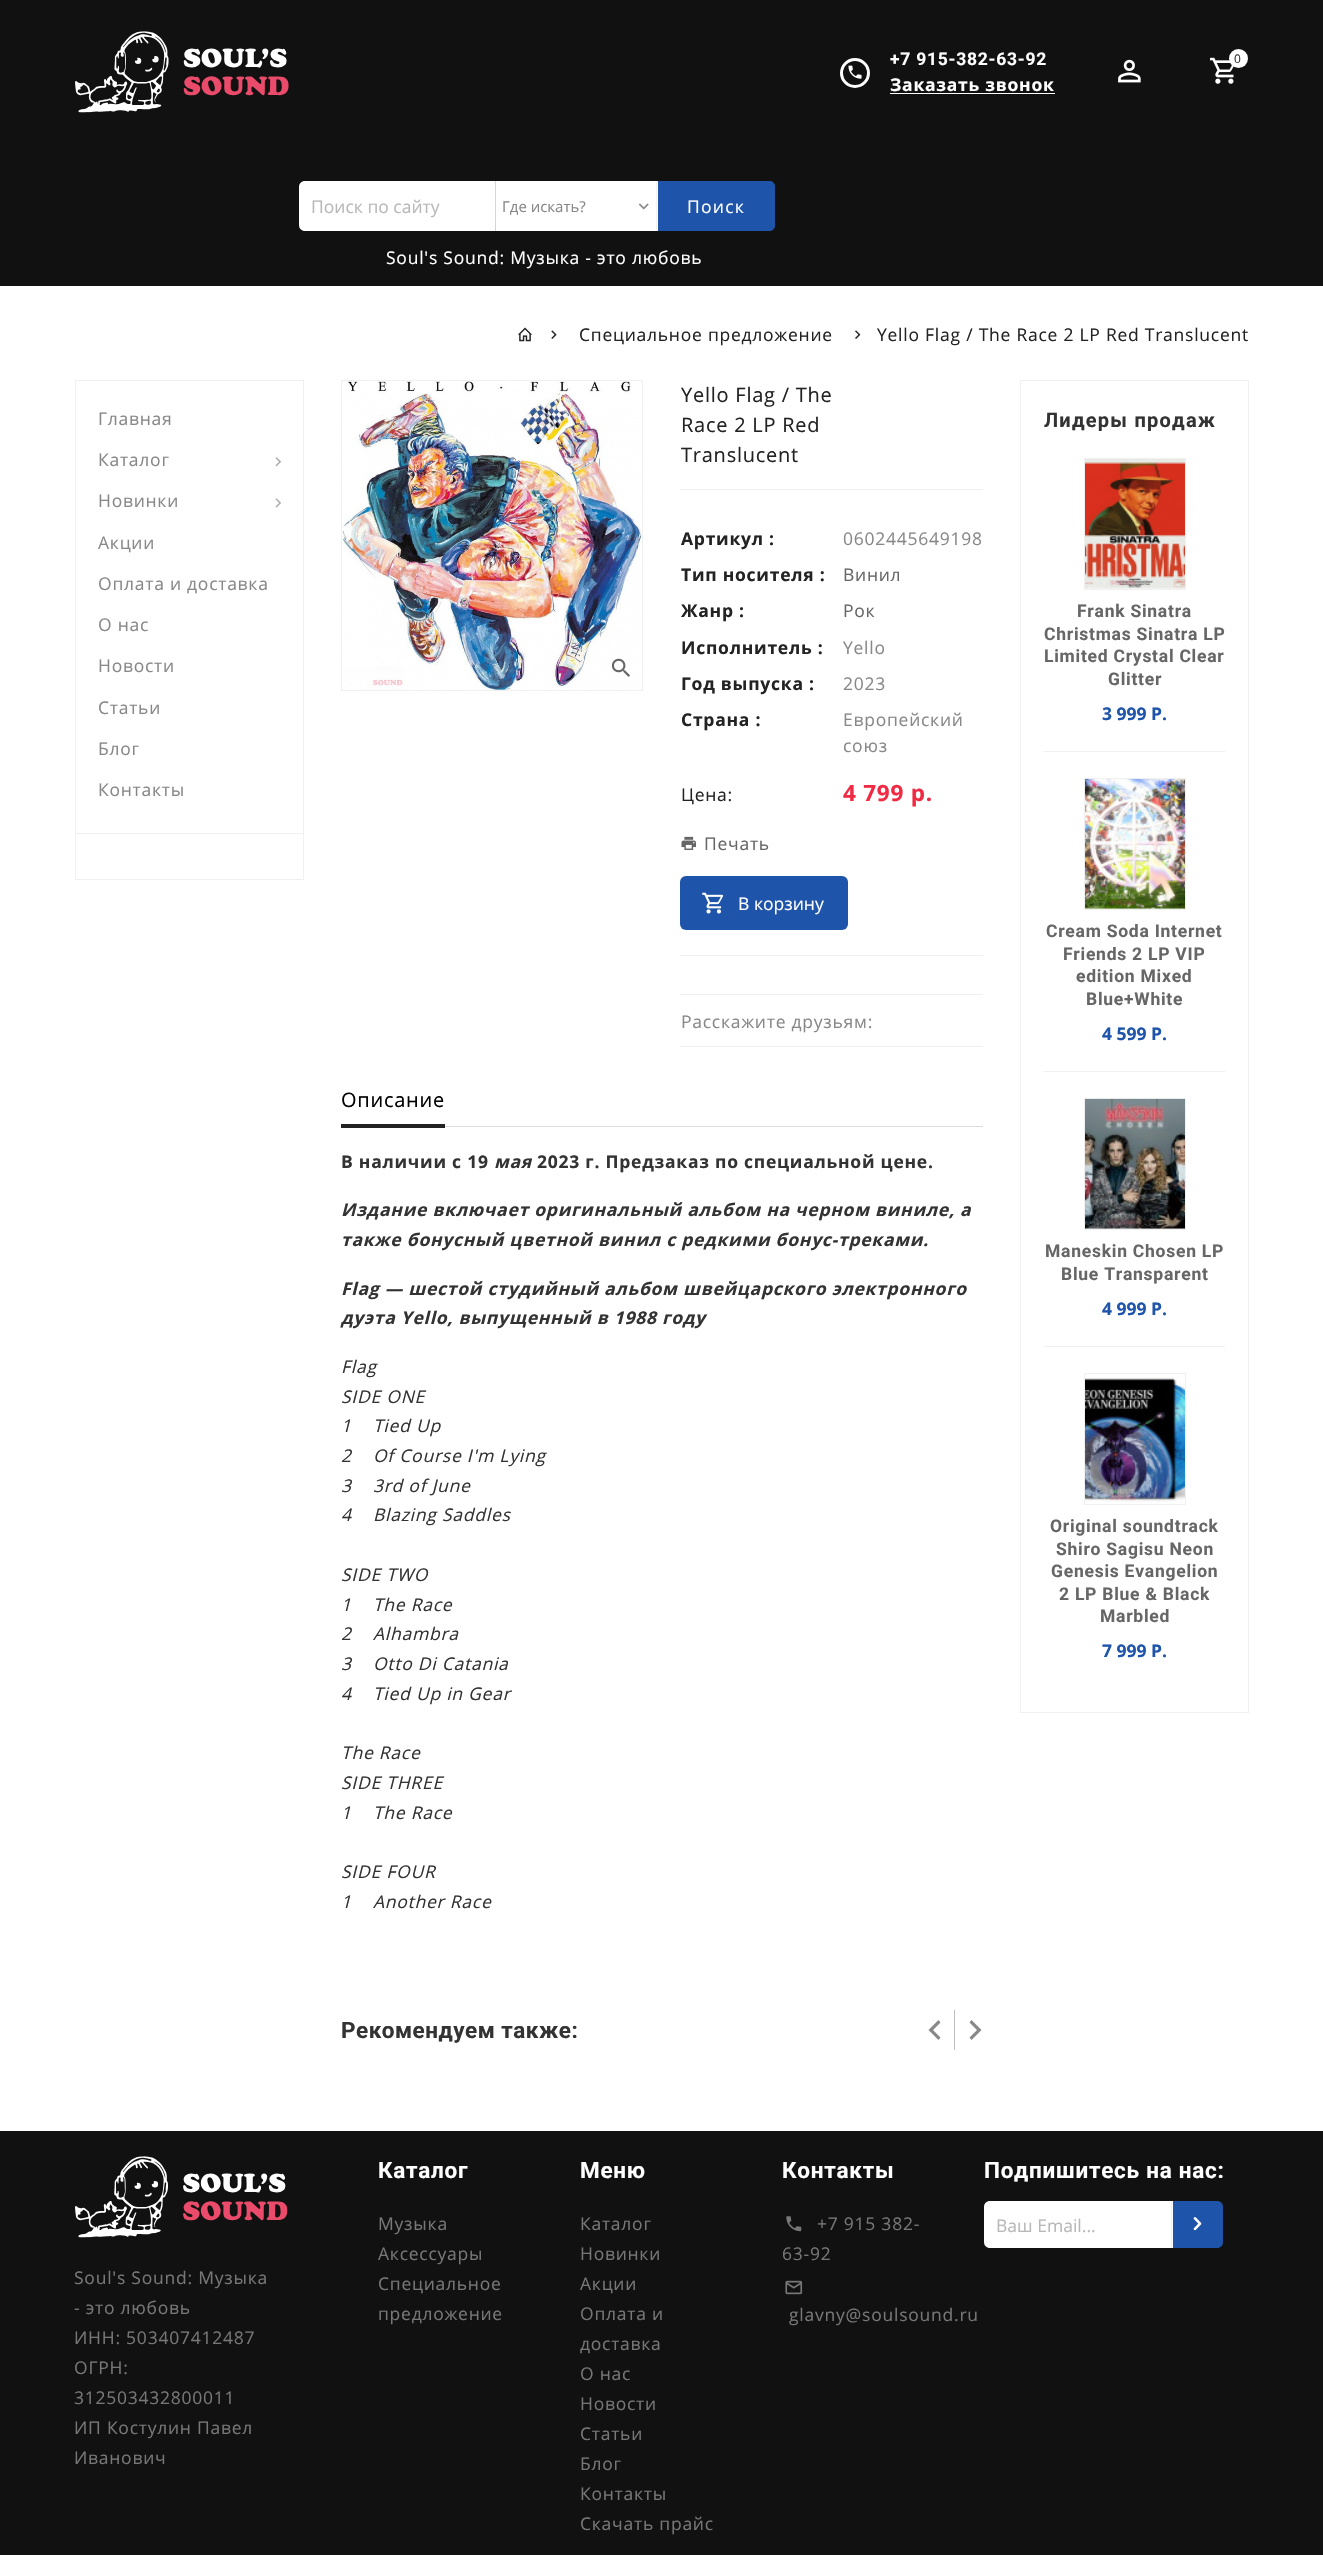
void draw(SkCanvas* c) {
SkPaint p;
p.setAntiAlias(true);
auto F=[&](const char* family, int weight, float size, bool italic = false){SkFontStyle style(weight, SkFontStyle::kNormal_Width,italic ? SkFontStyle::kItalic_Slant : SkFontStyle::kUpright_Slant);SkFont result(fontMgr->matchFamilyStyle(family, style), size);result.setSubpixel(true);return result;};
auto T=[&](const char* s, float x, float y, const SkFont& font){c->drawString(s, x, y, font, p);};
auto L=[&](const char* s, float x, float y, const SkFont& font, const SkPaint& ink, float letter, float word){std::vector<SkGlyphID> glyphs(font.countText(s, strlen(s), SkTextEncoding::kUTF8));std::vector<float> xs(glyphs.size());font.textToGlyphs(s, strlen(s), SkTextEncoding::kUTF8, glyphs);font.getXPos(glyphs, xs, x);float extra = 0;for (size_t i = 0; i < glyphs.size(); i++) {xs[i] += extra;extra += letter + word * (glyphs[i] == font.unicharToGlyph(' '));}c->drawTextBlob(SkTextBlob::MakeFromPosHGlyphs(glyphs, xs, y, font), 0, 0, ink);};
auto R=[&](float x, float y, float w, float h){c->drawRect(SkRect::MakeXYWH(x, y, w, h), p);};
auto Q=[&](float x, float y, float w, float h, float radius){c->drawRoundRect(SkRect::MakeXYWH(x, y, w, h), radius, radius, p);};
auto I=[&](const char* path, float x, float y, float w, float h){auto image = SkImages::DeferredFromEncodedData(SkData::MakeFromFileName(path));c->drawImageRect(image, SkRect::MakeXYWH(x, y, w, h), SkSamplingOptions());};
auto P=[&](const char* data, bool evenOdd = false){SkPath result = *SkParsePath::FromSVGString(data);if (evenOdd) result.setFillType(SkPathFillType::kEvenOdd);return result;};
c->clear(0xffffffff);
p.setColor(0xff111111);
R(0,0,1323,286);
I("1.png",75,31,214,82);
p.setStroke(true);
p.setStrokeWidth(3);
p.setColor(0xffffffff);
c->drawCircle(855,73,13.5,p);
I("2.png",848,65,14,14);
auto f1 = F("Roboto",700,17.5);
p.setStroke(false);
L("+7 915-382-63-92",890,65,f1,p,.75,0);
auto f2 = F("Open Sans",700,17.5);
L("Заказать звонок",890,91,f2,p,.75,0);
R(890,93,165,1);
I("3.png",1118,59,23,24);
I("4.png",1210,57,24,27);
c->drawCircle(1238.5,58.5,9.5,p);
auto f3 = F("Open Sans",400,12);
p.setColor(0xff333333);
T("0",1234,63,f3);
p.setColor(0xffffffff);
c->drawPath(P("M305 181h190v50h-190c-3.5 0-6-2.5-6-6v-38c0-3.5 2.5-6 6-6z"),p);
auto f4 = F("Open Sans",400,17.5);
p.setColor(0xffb8b8b8);
T("Поиск по сайту",311,213,f4);
p.setColor(0xffd6d6d6);
R(495,181,1,50);
p.setColor(0xffffffff);
R(496,181,162,50);
p.setColor(0xfff0f0f0);
R(656,181,1,50);
auto f5 = F("Open Sans",400,15);
p.setColor(0xff888888);
T("Где искать?",502,212,f5);
I("5.png",638,203,11,7);
p.setColor(0xff1e54aa);
c->drawPath(P("M658.5 181.5h111.5c2.5 0 4.5 2 4.5 4.5v40c0 2.5-2 4.5-4.5 4.5h-111.5z"),p);
p.setStroke(true);
p.setStrokeWidth(1);
c->drawPath(P("M658.5 181.5h111.5c2.5 0 4.5 2 4.5 4.5v40c0 2.5-2 4.5-4.5 4.5h-111.5z"),p);
p.setStroke(false);
p.setColor(0xffffffff);
L("Поиск",687,213,f4,p,1.25,0);
L("Soul's Sound: Музыка - это любовь",386,264,f4,p,.75,0);
I("6.png",518,327,14,15);
I("7.png",551,330,6,9);
p.setColor(0xff232323);
L("Специальное предложение",579,341,f4,p,.75,0);
I("8.png",855,330,6,9);
L("Yello Flag / The Race 2 LP Red Translucent",877,341,f4,p,.75,0);
p.setStroke(true);
p.setColor(0xfff0f0f0);
c->drawRect(SkRect::MakeXYWH(75.5,380.5,228,453),p);
p.setStroke(false);
p.setColor(0xff888888);
L("Главная",98,425,f4,p,.75,0);
L("Каталог",98,466,f4,p,.75,0);
I("9.png",275,457,7,10);
L("Новинки",98,507,f4,p,.75,0);
I("10.png",275,498,6,10);
L("Акции",98,549,f4,p,.75,0);
L("Оплата и доставка",98,590,f4,p,.75,0);
L("О нас",98,631,f4,p,.75,0);
L("Новости",98,672,f4,p,.75,0);
L("Статьи",98,714,f4,p,.75,0);
L("Блог",98,755,f4,p,.75,0);
L("Контакты",98,796,f4,p,.75,0);
p.setStroke(true);
p.setColor(0xfff0f0f0);
c->drawRect(SkRect::MakeXYWH(75.5,833.5,228,46),p);
c->drawRect(SkRect::MakeXYWH(341.5,380.5,301,310),p);
I("11.png",342,381,300,309);
I("12.png",611,658,19,19);
auto f6 = F("Open Sans",400,20);
p.setStroke(false);
p.setColor(0xff232323);
L("Yello Flag / The",681,402,f6,p,.75,0);
L("Race 2 LP Red",681,432,f6,p,.75,0);
L("Translucent",681,462,f6,p,.75,0);
p.setColor(0xfff0f0f0);
R(680,489,303,1);
p.setColor(0xff232323);
L("Артикул :",681,545,f2,p,.75,0);
p.setColor(0xff888888);
L("0602445649198",843,545,f4,p,.75,0);
p.setColor(0xff232323);
L("Тип носителя :",681,581,f2,p,.75,0);
p.setColor(0xff666666);
L("Винил",843,581,f4,p,.75,0);
p.setColor(0xff232323);
L("Жанр :",681,617,f2,p,.75,0);
p.setColor(0xff666666);
L("Рок",843,617,f4,p,.75,0);
p.setColor(0xff232323);
L("Исполнитель :",681,654,f2,p,.75,0);
p.setColor(0xff888888);
L("Yello",843,654,f4,p,.75,0);
p.setColor(0xff232323);
L("Год выпуска :",681,690,f2,p,.75,0);
p.setColor(0xff888888);
L("2023",843,690,f4,p,.75,0);
p.setColor(0xff232323);
L("Страна :",681,726,f2,p,.75,0);
p.setColor(0xff888888);
L("Европейский",843,726,f4,p,.75,0);
L("союз",843,752,f4,p,.75,0);
p.setColor(0xff232323);
L("Цена:",681,801,f4,p,.75,0);
auto f7 = F("Open Sans",700,22.5);
p.setColor(0xfff12a43);
L("4 799 р.",843,801,f7,p,.75,0);
I("13.png",681,836,16,14);
p.setColor(0xff666666);
L("Печать",704,850,f4,p,.75,0);
p.setColor(0xfff0f0f0);
R(680,955,303,1);
p.setColor(0xff1e54aa);
Q(680,876,168,54,6);
I("14.png",702,892,22,22);
p.setColor(0xffffffff);
T("В корзину",738,910,f4);
p.setColor(0xfff0f0f0);
R(680,994,303,1);
R(680,1046,303,1);
p.setColor(0xff888888);
L("Расскажите друзьям:",681,1028,f4,p,.75,0);
p.setColor(0xffdddddd);
R(445,1126,538,1);
p.setColor(0xff000000);
L("Описание",341,1107,f6,p,.75,0);
p.setColor(0xff232323);
R(341,1124,104,4);
p.setColor(0xff333333);
L("В наличии с 19",341,1168,f2,p,.75,0);
auto f8 = F("Open Sans",700,17.5,true);
L("мая",494,1168,f8,p,.75,0);
L("2023 г. Предзаказ по специальной цене.",537,1168,f2,p,.75,0);
L("Издание включает оригинальный альбом на черном виниле, а",341,1216,f8,p,.75,0);
L("также бонусный цветной винил с редкими бонус-треками.",341,1246,f8,p,.75,0);
L("Flag — шестой студийный альбом швейцарского электронного",341,1295,f8,p,.75,0);
L("дуэта Yello, выпущенный в 1988 году",341,1324,f8,p,.75,0);
auto f9 = F("Open Sans",400,17.5,true);
L("Flag",341,1373,f9,p,.75,0);
L("SIDE ONE",341,1403,f9,p,.75,0);
L("1    Tied Up",341,1432,f9,p,.75,0);
L("2    Of Course I'm Lying",341,1462,f9,p,.75,0);
L("3    3rd of June",341,1492,f9,p,.75,0);
L("4    Blazing Saddles",341,1521,f9,p,.75,0);
L("SIDE TWO",341,1581,f9,p,.75,0);
L("1    The Race",341,1611,f9,p,.75,0);
L("2    Alhambra",341,1640,f9,p,.75,0);
L("3    Otto Di Catania",341,1670,f9,p,.75,0);
L("4    Tied Up in Gear",341,1700,f9,p,.75,0);
L("The Race",341,1759,f9,p,.75,0);
L("SIDE THREE",341,1789,f9,p,.75,0);
L("1    The Race",341,1819,f9,p,.75,0);
L("SIDE FOUR",341,1878,f9,p,.75,0);
L("1    Another Race",341,1908,f9,p,.75,0);
auto f10 = F("Roboto",700,22.5);
L("Рекомендуем также:",341,2038,f10,p,.5,0);
p.setColor(0xffbfbfbf);
R(954,2010,1,40);
p.setColor(0xff888888);
c->drawPath(P("M940.5 2037.5l-7.5-7.5l7.5-7.5l-2-2.5l-10 10l10 10zm29 0l7.5-7.5l-7.5-7.5l2-2.5l10 10l-10 10z"),p);
p.setStroke(true);
p.setColor(0xfff0f0f0);
c->drawRect(SkRect::MakeXYWH(1020.5,380.5,228,1332),p);
auto f11 = F("Roboto",700,20);
p.setStroke(false);
p.setColor(0xff333333);
L("Лидеры продаж",1044,427,f11,p,1.25,0);
p.setColor(0xfff0f0f0);
R(1044,751,181,1);
p.setStroke(true);
c->drawRect(SkRect::MakeXYWH(1084.5,458.5,101,131),p);
I("15.png",1085,459,100,130);
p.setStroke(false);
p.setColor(0xff666666);
L("Frank Sinatra",1077,617,f1,p,.75,0);
L("Christmas Sinatra LP",1044,640,f1,p,.75,0);
L("Limited Crystal Clear",1044,662,f1,p,.75,0);
L("Glitter",1108,685,f1,p,.75,0);
p.setColor(0xff1e54aa);
T("3 999 Р.",1102,720,f2);
p.setColor(0xfff0f0f0);
R(1044,1071,181,1);
p.setStroke(true);
c->drawRect(SkRect::MakeXYWH(1084.5,778.5,101,131),p);
I("16.png",1085,778,100,131);
p.setStroke(false);
p.setColor(0xff666666);
L("Cream Soda Internet",1046,937,f1,p,.75,0);
L("Friends 2 LP VIP",1063,960,f1,p,.75,0);
L("edition Mixed",1076,982,f1,p,.75,0);
L("Blue+White",1086,1005,f1,p,.75,0);
p.setColor(0xff1e54aa);
T("4 599 Р.",1102,1040,f2);
p.setColor(0xfff0f0f0);
R(1044,1346,181,1);
p.setStroke(true);
c->drawRect(SkRect::MakeXYWH(1084.5,1098.5,101,131),p);
I("17.png",1085,1098,100,131);
p.setStroke(false);
p.setColor(0xff666666);
L("Maneskin Chosen LP",1045,1257,f1,p,.75,0);
L("Blue Transparent",1061,1280,f1,p,.75,0);
p.setColor(0xff1e54aa);
T("4 999 Р.",1102,1315,f2);
p.setStroke(true);
p.setColor(0xfff0f0f0);
c->drawRect(SkRect::MakeXYWH(1084.5,1373.5,101,131),p);
I("18.png",1085,1376,100,127);
p.setStroke(false);
p.setColor(0xff666666);
L("Original soundtrack",1050,1532,f1,p,.75,0);
L("Shiro Sagisu Neon",1056,1555,f1,p,.75,0);
L("Genesis Evangelion",1051,1577,f1,p,.75,0);
L("2 LP Blue & Black",1059,1600,f1,p,.75,0);
L("Marbled",1100,1622,f1,p,.75,0);
p.setColor(0xff1e54aa);
T("7 999 Р.",1102,1657,f2);
p.setColor(0xff111111);
R(0,2131,1323,424);
p.setColor(0xffffffff);
L("Каталог",378,2178,f10,p,.75,0);
p.setColor(0xff777777);
L("Музыка",378,2230,f4,p,.75,0);
L("Аксессуары",378,2260,f4,p,.75,0);
L("Специальное",378,2290,f4,p,.75,0);
L("предложение",378,2320,f4,p,.75,0);
p.setColor(0xffffffff);
L("Меню",580,2178,f10,p,.75,0);
p.setColor(0xff777777);
L("Каталог",580,2230,f4,p,.75,0);
L("Новинки",580,2260,f4,p,.75,0);
L("Акции",580,2290,f4,p,.75,0);
L("Оплата и",580,2320,f4,p,.75,0);
L("доставка",580,2350,f4,p,.75,0);
L("О нас",580,2380,f4,p,.75,0);
L("Новости",580,2410,f4,p,.75,0);
L("Статьи",580,2440,f4,p,.75,0);
L("Блог",580,2470,f4,p,.75,0);
L("Контакты",580,2500,f4,p,.75,0);
L("Скачать прайс",580,2530,f4,p,.75,0);
p.setColor(0xffffffff);
L("Контакты",782,2178,f10,p,.75,0);
I("19.png",786,2216,16,16);
p.setColor(0xff777777);
L("+7 915 382-",817,2230,f4,p,.75,0);
L("63-92",782,2260,f4,p,.75,0);
I("20.png",785,2280,18,15);
L("glavny@soulsound.ru",789,2321,f4,p,.75,0);
p.setColor(0xffffffff);
L("Подпишитесь на нас:",984,2178,f10,p,.75,0);
c->drawPath(P("M990 2201h183v47h-183c-3.5 0-6-2.5-6-6v-35c0-3.5 2.5-6 6-6z"),p);
p.setColor(0xfff0f0f0);
R(1171,2201,1,47);
p.setColor(0xffb8b8b8);
T("Ваш Email...",996,2232,f4);
p.setColor(0xff1e54aa);
c->drawPath(P("M1173 2201h44c3.5 0 6 2.5 6 6v35c0 3.5-2.5 6-6 6h-44z"),p);
I("21.png",1193,2217,9,14);
I("22.png",75,2156,213,82);
p.setColor(0xff777777);
L("Soul's Sound: Музыка",74,2284,f4,p,.75,0);
L("- это любовь",74,2314,f4,p,.75,0);
L("ИНН: 503407412487",74,2344,f4,p,.75,0);
L("ОГРН:",74,2374,f4,p,.75,0);
L("312503432800011",74,2404,f4,p,.75,0);
L("ИП Костулин Павел",74,2434,f4,p,.75,0);
L("Иванович",74,2464,f4,p,.75,0);
}
